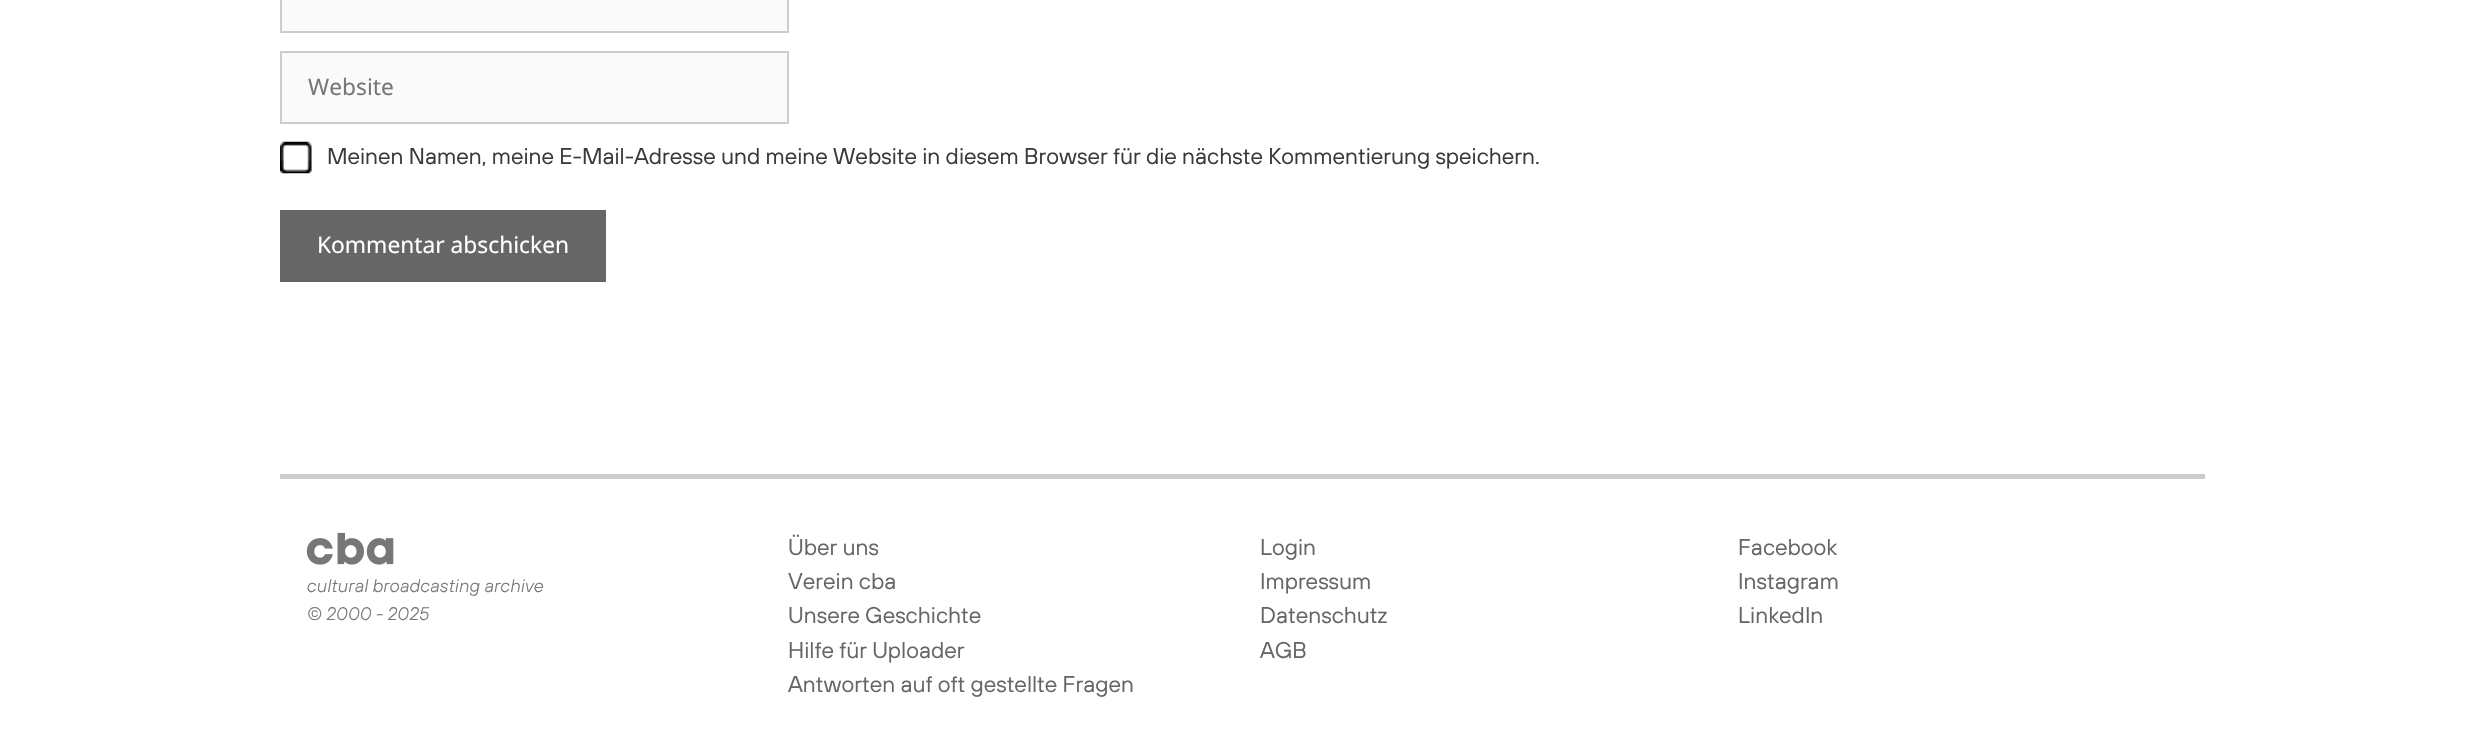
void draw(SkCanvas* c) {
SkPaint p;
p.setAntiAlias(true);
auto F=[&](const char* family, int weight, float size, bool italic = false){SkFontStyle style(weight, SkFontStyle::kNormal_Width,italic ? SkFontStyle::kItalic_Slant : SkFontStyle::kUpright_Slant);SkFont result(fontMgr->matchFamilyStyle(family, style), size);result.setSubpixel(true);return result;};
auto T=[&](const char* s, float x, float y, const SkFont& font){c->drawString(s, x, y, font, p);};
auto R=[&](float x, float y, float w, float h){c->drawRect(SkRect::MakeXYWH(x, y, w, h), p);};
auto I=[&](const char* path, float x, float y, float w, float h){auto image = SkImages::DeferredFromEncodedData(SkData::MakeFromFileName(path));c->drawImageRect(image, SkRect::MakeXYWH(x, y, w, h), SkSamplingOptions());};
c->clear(0xffffffff);
p.setColor(0xfffafafa);
c->drawRect(SkRect::MakeXYWH(281,-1,507,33),p);
p.setStroke(true);
p.setStrokeWidth(2);
p.setColor(0xffcccccc);
c->drawRect(SkRect::MakeXYWH(281,-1,507,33),p);
p.setStroke(false);
p.setColor(0xfffafafa);
c->drawRect(SkRect::MakeXYWH(281,52,507,71),p);
p.setStroke(true);
p.setColor(0xffcccccc);
c->drawRect(SkRect::MakeXYWH(281,52,507,71),p);
auto f1 = F("Noto Sans",400,22.75);
p.setStroke(false);
p.setColor(0xff777777);
T("Website",308,95,f1);
I("1.png",280,141,32,33);
auto f2 = F("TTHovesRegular",400,22.75);
p.setColor(0xff3a3a3a);
T("Meinen Namen, meine E-Mail-Adresse und meine Website in diesem Browser für die nächste Kommentierung speichern.",327,164,f2);
p.setColor(0xff666666);
R(280,210,326,72);
p.setColor(0xffffffff);
T("Kommentar abschicken",317,253,f1);
p.setColor(0xffcccccc);
R(280,474,1925,5);
I("2.png",306,532,88,33);
auto f3 = F("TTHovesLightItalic",400,18.25);
p.setColor(0xff777777);
T("cultural broadcasting archive",306,592,f3);
T("© 2000 - 2025",306,620,f3);
p.setColor(0xff666666);
T("Über uns",788,555,f2);
T("Verein cba",788,589,f2);
T("Unsere Geschichte",788,623,f2);
T("Hilfe für Uploader",788,658,f2);
T("Antworten auf oft gestellte Fragen",788,692,f2);
T("Login",1260,555,f2);
T("Impressum",1260,589,f2);
T("Datenschutz",1260,623,f2);
T("AGB",1260,658,f2);
T("Facebook",1738,555,f2);
T("Instagram",1738,589,f2);
T("LinkedIn",1738,623,f2);
}
